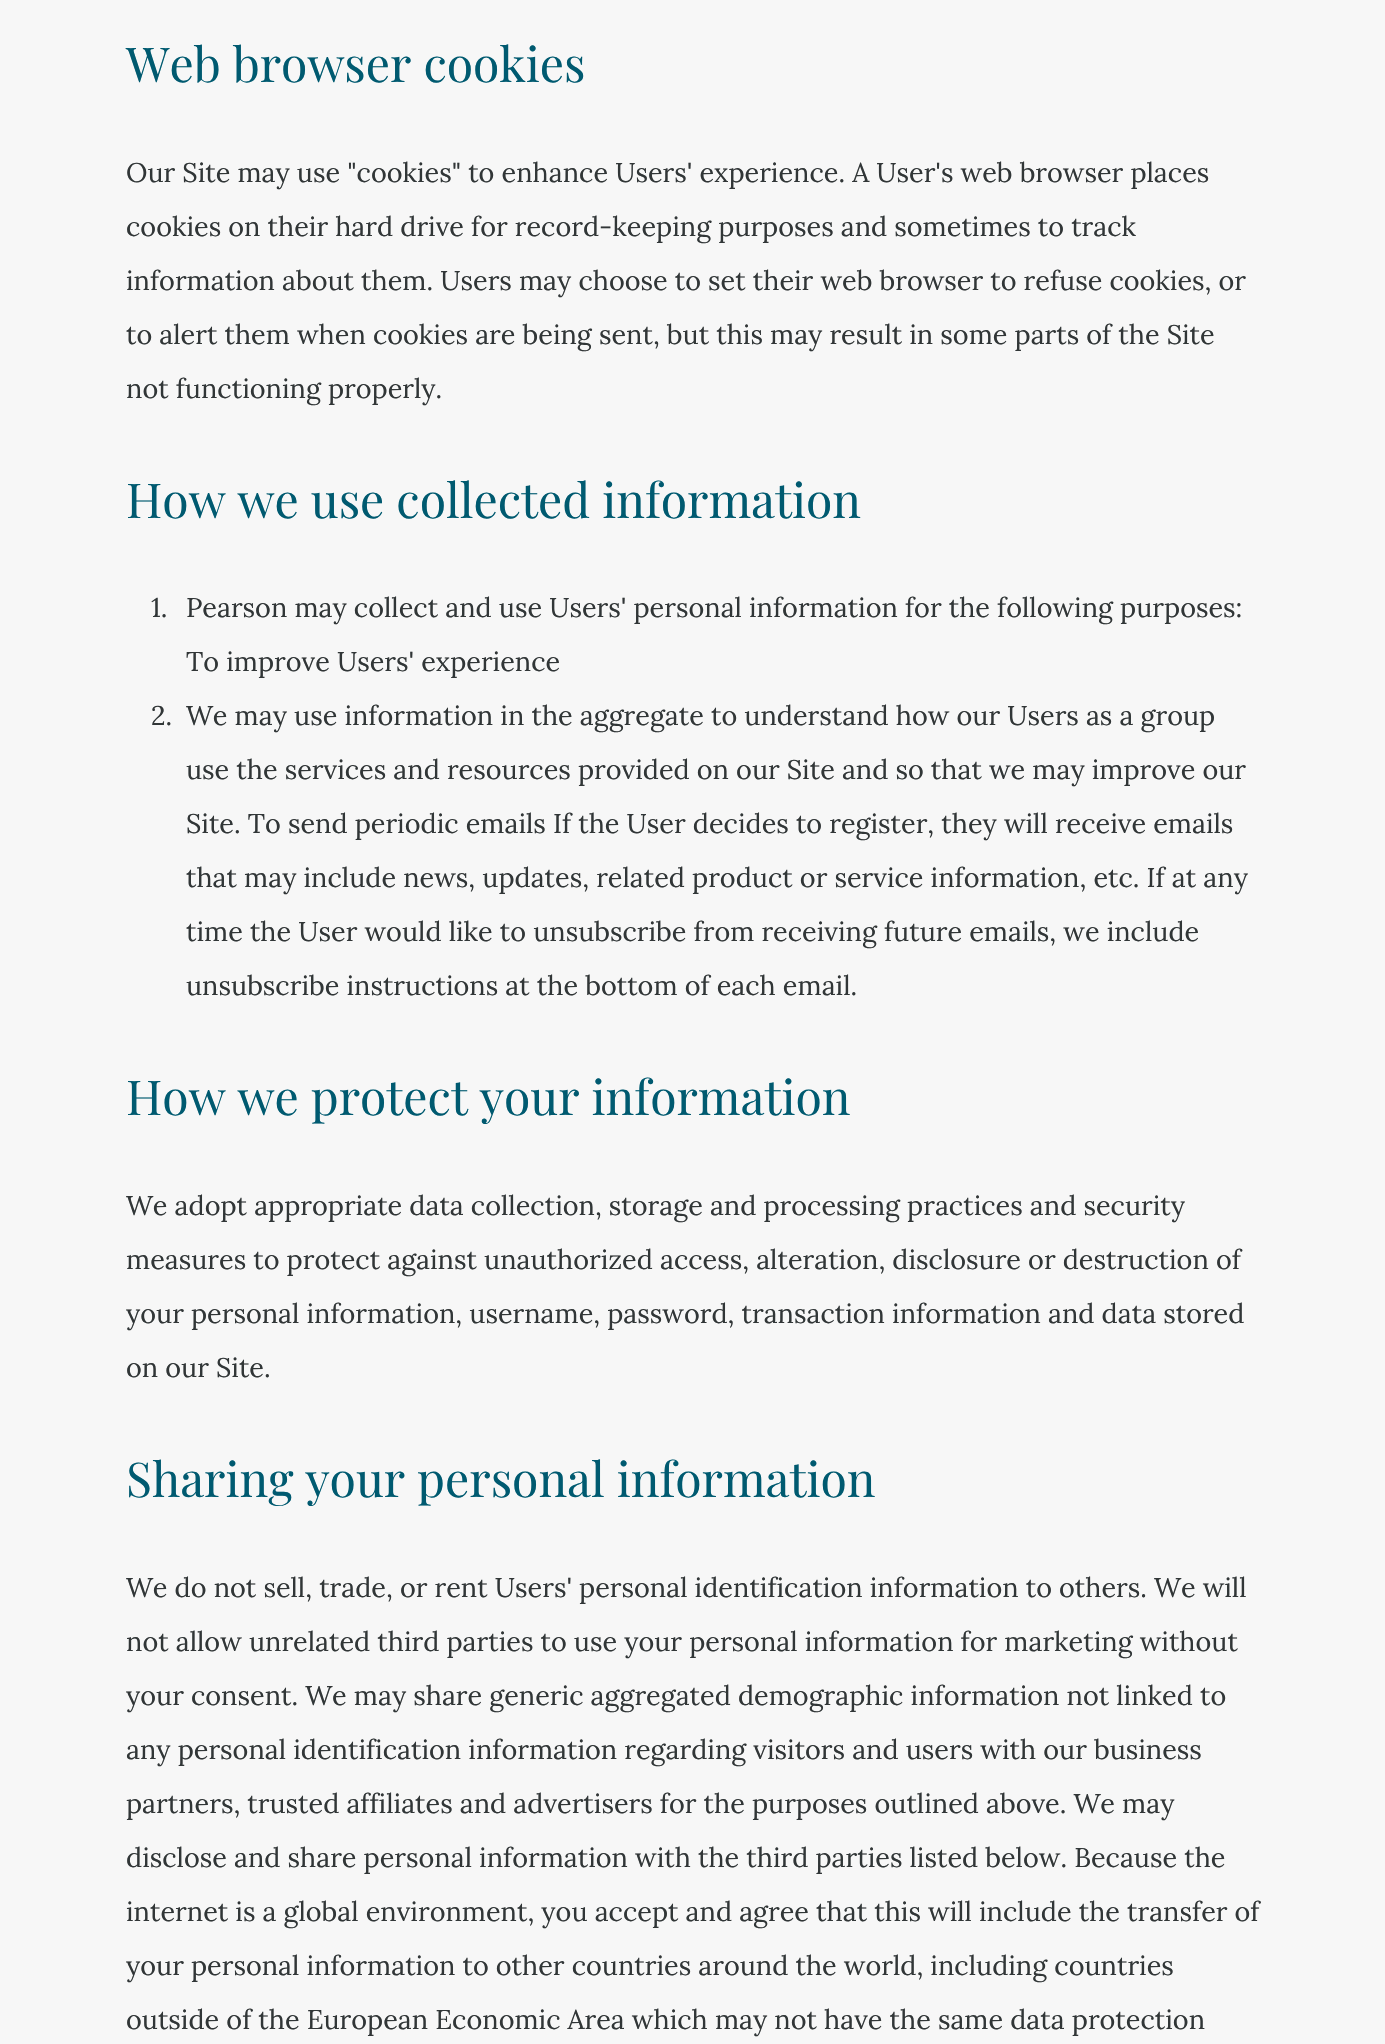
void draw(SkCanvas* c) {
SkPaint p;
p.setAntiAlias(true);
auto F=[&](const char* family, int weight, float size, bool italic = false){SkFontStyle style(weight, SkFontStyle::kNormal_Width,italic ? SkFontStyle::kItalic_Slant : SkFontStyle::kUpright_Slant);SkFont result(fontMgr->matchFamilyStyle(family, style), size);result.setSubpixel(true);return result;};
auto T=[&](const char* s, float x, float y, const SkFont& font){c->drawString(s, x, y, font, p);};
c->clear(0xfff7f7f7);
auto f1 = F("Playfair Display",400,48);
p.setColor(0xff005a70);
T("Web browser cookies",126,82,f1);
auto f2 = F("Lora",400,27);
p.setColor(0xff313637);
T("Our Site may use \"cookies\" to enhance Users' experience. A User's web browser places",126,182,f2);
T("cookies on their hard drive for record-keeping purposes and sometimes to track",126,236,f2);
T("information about them. Users may choose to set their web browser to refuse cookies, or",126,290,f2);
T("to alert them when cookies are being sent, but this may result in some parts of the Site",126,344,f2);
T("not functioning properly.",126,398,f2);
p.setColor(0xff005a70);
T("How we use collected information",126,518,f1);
p.setColor(0xff313637);
T("1.",151,617,f2);
T("Pearson may collect and use Users' personal information for the following purposes:",186,617,f2);
T("To improve Users' experience",186,671,f2);
T("2.",151,725,f2);
T("We may use information in the aggregate to understand how our Users as a group",186,725,f2);
T("use the services and resources provided on our Site and so that we may improve our",186,779,f2);
T("Site. To send periodic emails If the User decides to register, they will receive emails",186,833,f2);
T("that may include news, updates, related product or service information, etc. If at any",186,887,f2);
T("time the User would like to unsubscribe from receiving future emails, we include",186,941,f2);
T("unsubscribe instructions at the bottom of each email.",186,995,f2);
p.setColor(0xff005a70);
T("How we protect your information",126,1115,f1);
p.setColor(0xff313637);
T("We adopt appropriate data collection, storage and processing practices and security",126,1215,f2);
T("measures to protect against unauthorized access, alteration, disclosure or destruction of",126,1269,f2);
T("your personal information, username, password, transaction information and data stored",126,1323,f2);
T("on our Site.",126,1377,f2);
p.setColor(0xff005a70);
T("Sharing your personal information",126,1497,f1);
p.setColor(0xff313637);
T("We do not sell, trade, or rent Users' personal identification information to others. We will",126,1597,f2);
T("not allow unrelated third parties to use your personal information for marketing without",126,1651,f2);
T("your consent. We may share generic aggregated demographic information not linked to",126,1705,f2);
T("any personal identification information regarding visitors and users with our business",126,1759,f2);
T("partners, trusted affiliates and advertisers for the purposes outlined above. We may",126,1813,f2);
T("disclose and share personal information with the third parties listed below. Because the",126,1867,f2);
T("internet is a global environment, you accept and agree that this will include the transfer of",126,1921,f2);
T("your personal information to other countries around the world, including countries",126,1975,f2);
T("outside of the European Economic Area which may not have the same data protection",126,2029,f2);
}
